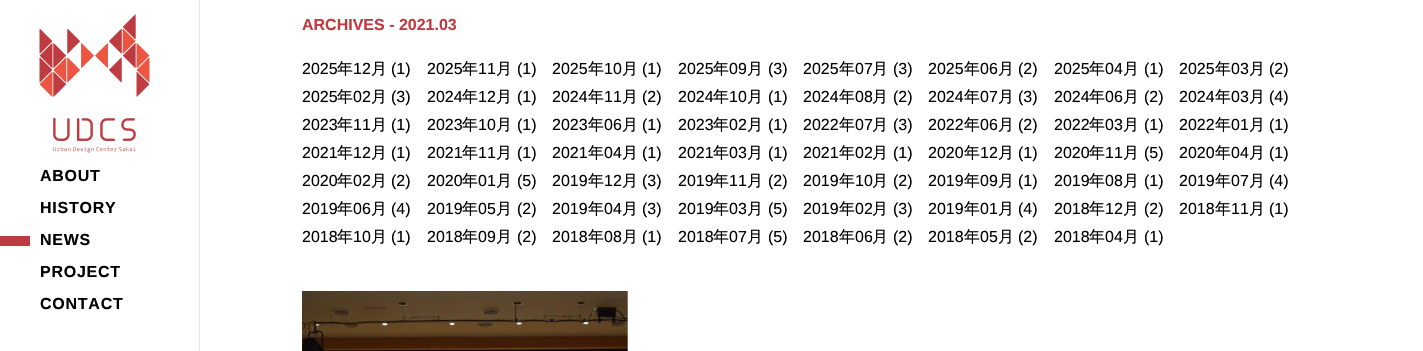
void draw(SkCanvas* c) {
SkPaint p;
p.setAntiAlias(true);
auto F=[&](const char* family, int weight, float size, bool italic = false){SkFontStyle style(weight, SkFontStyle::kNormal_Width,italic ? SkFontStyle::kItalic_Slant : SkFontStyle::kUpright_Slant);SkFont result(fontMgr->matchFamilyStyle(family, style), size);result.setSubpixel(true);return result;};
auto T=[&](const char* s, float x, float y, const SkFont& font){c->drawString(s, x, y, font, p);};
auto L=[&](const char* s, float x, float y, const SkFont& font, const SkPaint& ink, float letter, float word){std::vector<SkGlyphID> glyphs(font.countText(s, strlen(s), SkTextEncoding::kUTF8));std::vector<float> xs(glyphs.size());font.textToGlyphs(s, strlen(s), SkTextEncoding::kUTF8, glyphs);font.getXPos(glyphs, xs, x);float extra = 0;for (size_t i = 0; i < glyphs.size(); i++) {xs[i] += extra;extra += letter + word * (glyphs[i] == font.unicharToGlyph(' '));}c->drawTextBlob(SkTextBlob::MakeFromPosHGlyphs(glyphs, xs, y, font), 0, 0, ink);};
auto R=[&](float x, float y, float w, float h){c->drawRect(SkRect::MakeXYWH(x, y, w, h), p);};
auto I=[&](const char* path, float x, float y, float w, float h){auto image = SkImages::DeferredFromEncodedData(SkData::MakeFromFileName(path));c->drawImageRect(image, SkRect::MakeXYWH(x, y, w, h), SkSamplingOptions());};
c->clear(0xffffffff);
p.setColor(0xffe6e6e6);
R(199,0,1,351);
I("1.png",39,14,111,139);
p.setColor(0xffbe3c41);
R(0,236,30,10);
auto f1 = F("Liberation Sans",700,16);
p.setColor(0xff000000);
L("ABOUT",40,181,f1,p,.75,0);
L("HISTORY",40,213,f1,p,.75,0);
L("NEWS",40,245,f1,p,.75,0);
L("PROJECT",40,277,f1,p,.75,0);
L("CONTACT",40,309,f1,p,.75,0);
p.setColor(0xffbe3c41);
T("ARCHIVES - 2021.03",302,30,f1);
auto f2 = F("Liberation Sans",400,16);
p.setColor(0xff000000);
T("2025",302,74,f2);
auto f3 = F("WenQuanYi Zen Hei",500,16);
T("年",337,74,f3);
T("12",353,74,f2);
T("月",371,74,f3);
T("(1)",391,74,f2);
T("2025",427,74,f2);
T("年",462,74,f3);
T("11",478,74,f2);
T("月",496,74,f3);
T("(1)",517,74,f2);
T("2025",552,74,f2);
T("年",588,74,f3);
T("10",604,74,f2);
T("月",622,74,f3);
T("(1)",642,74,f2);
T("2025",678,74,f2);
T("年",713,74,f3);
T("09",729,74,f2);
T("月",747,74,f3);
T("(3)",768,74,f2);
T("2025",803,74,f2);
T("年",839,74,f3);
T("07",855,74,f2);
T("月",872,74,f3);
T("(3)",893,74,f2);
T("2025",928,74,f2);
T("年",964,74,f3);
T("06",980,74,f2);
T("月",998,74,f3);
T("(2)",1018,74,f2);
T("2025",1054,74,f2);
T("年",1089,74,f3);
T("04",1105,74,f2);
T("月",1123,74,f3);
T("(1)",1144,74,f2);
T("2025",1179,74,f2);
T("年",1215,74,f3);
T("03",1231,74,f2);
T("月",1249,74,f3);
T("(2)",1269,74,f2);
T("2025",302,102,f2);
T("年",337,102,f3);
T("02",353,102,f2);
T("月",371,102,f3);
T("(3)",391,102,f2);
T("2024",427,102,f2);
T("年",462,102,f3);
T("12",478,102,f2);
T("月",496,102,f3);
T("(1)",517,102,f2);
T("2024",552,102,f2);
T("年",588,102,f3);
T("11",604,102,f2);
T("月",622,102,f3);
T("(2)",642,102,f2);
T("2024",678,102,f2);
T("年",713,102,f3);
T("10",729,102,f2);
T("月",747,102,f3);
T("(1)",768,102,f2);
T("2024",803,102,f2);
T("年",839,102,f3);
T("08",855,102,f2);
T("月",872,102,f3);
T("(2)",893,102,f2);
T("2024",928,102,f2);
T("年",964,102,f3);
T("07",980,102,f2);
T("月",998,102,f3);
T("(3)",1018,102,f2);
T("2024",1054,102,f2);
T("年",1089,102,f3);
T("06",1105,102,f2);
T("月",1123,102,f3);
T("(2)",1144,102,f2);
T("2024",1179,102,f2);
T("年",1215,102,f3);
T("03",1231,102,f2);
T("月",1249,102,f3);
T("(4)",1269,102,f2);
T("2023",302,130,f2);
T("年",337,130,f3);
T("11",353,130,f2);
T("月",371,130,f3);
T("(1)",391,130,f2);
T("2023",427,130,f2);
T("年",462,130,f3);
T("10",478,130,f2);
T("月",496,130,f3);
T("(1)",517,130,f2);
T("2023",552,130,f2);
T("年",588,130,f3);
T("06",604,130,f2);
T("月",622,130,f3);
T("(1)",642,130,f2);
T("2023",678,130,f2);
T("年",713,130,f3);
T("02",729,130,f2);
T("月",747,130,f3);
T("(1)",768,130,f2);
T("2022",803,130,f2);
T("年",839,130,f3);
T("07",855,130,f2);
T("月",872,130,f3);
T("(3)",893,130,f2);
T("2022",928,130,f2);
T("年",964,130,f3);
T("06",980,130,f2);
T("月",998,130,f3);
T("(2)",1018,130,f2);
T("2022",1054,130,f2);
T("年",1089,130,f3);
T("03",1105,130,f2);
T("月",1123,130,f3);
T("(1)",1144,130,f2);
T("2022",1179,130,f2);
T("年",1215,130,f3);
T("01",1231,130,f2);
T("月",1249,130,f3);
T("(1)",1269,130,f2);
T("2021",302,158,f2);
T("年",337,158,f3);
T("12",353,158,f2);
T("月",371,158,f3);
T("(1)",391,158,f2);
T("2021",427,158,f2);
T("年",462,158,f3);
T("11",478,158,f2);
T("月",496,158,f3);
T("(1)",517,158,f2);
T("2021",552,158,f2);
T("年",588,158,f3);
T("04",604,158,f2);
T("月",622,158,f3);
T("(1)",642,158,f2);
T("2021",678,158,f2);
T("年",713,158,f3);
T("03",729,158,f2);
T("月",747,158,f3);
T("(1)",768,158,f2);
T("2021",803,158,f2);
T("年",839,158,f3);
T("02",855,158,f2);
T("月",872,158,f3);
T("(1)",893,158,f2);
T("2020",928,158,f2);
T("年",964,158,f3);
T("12",980,158,f2);
T("月",998,158,f3);
T("(1)",1018,158,f2);
T("2020",1054,158,f2);
T("年",1089,158,f3);
T("11",1105,158,f2);
T("月",1123,158,f3);
T("(5)",1144,158,f2);
T("2020",1179,158,f2);
T("年",1215,158,f3);
T("04",1231,158,f2);
T("月",1249,158,f3);
T("(1)",1269,158,f2);
T("2020",302,186,f2);
T("年",337,186,f3);
T("02",353,186,f2);
T("月",371,186,f3);
T("(2)",391,186,f2);
T("2020",427,186,f2);
T("年",462,186,f3);
T("01",478,186,f2);
T("月",496,186,f3);
T("(5)",517,186,f2);
T("2019",552,186,f2);
T("年",588,186,f3);
T("12",604,186,f2);
T("月",622,186,f3);
T("(3)",642,186,f2);
T("2019",678,186,f2);
T("年",713,186,f3);
T("11",729,186,f2);
T("月",747,186,f3);
T("(2)",768,186,f2);
T("2019",803,186,f2);
T("年",839,186,f3);
T("10",855,186,f2);
T("月",872,186,f3);
T("(2)",893,186,f2);
T("2019",928,186,f2);
T("年",964,186,f3);
T("09",980,186,f2);
T("月",998,186,f3);
T("(1)",1018,186,f2);
T("2019",1054,186,f2);
T("年",1089,186,f3);
T("08",1105,186,f2);
T("月",1123,186,f3);
T("(1)",1144,186,f2);
T("2019",1179,186,f2);
T("年",1215,186,f3);
T("07",1231,186,f2);
T("月",1249,186,f3);
T("(4)",1269,186,f2);
T("2019",302,214,f2);
T("年",337,214,f3);
T("06",353,214,f2);
T("月",371,214,f3);
T("(4)",391,214,f2);
T("2019",427,214,f2);
T("年",462,214,f3);
T("05",478,214,f2);
T("月",496,214,f3);
T("(2)",517,214,f2);
T("2019",552,214,f2);
T("年",588,214,f3);
T("04",604,214,f2);
T("月",622,214,f3);
T("(3)",642,214,f2);
T("2019",678,214,f2);
T("年",713,214,f3);
T("03",729,214,f2);
T("月",747,214,f3);
T("(5)",768,214,f2);
T("2019",803,214,f2);
T("年",839,214,f3);
T("02",855,214,f2);
T("月",872,214,f3);
T("(3)",893,214,f2);
T("2019",928,214,f2);
T("年",964,214,f3);
T("01",980,214,f2);
T("月",998,214,f3);
T("(4)",1018,214,f2);
T("2018",1054,214,f2);
T("年",1089,214,f3);
T("12",1105,214,f2);
T("月",1123,214,f3);
T("(2)",1144,214,f2);
T("2018",1179,214,f2);
T("年",1215,214,f3);
T("11",1231,214,f2);
T("月",1249,214,f3);
T("(1)",1269,214,f2);
T("2018",302,242,f2);
T("年",337,242,f3);
T("10",353,242,f2);
T("月",371,242,f3);
T("(1)",391,242,f2);
T("2018",427,242,f2);
T("年",462,242,f3);
T("09",478,242,f2);
T("月",496,242,f3);
T("(2)",517,242,f2);
T("2018",552,242,f2);
T("年",588,242,f3);
T("08",604,242,f2);
T("月",622,242,f3);
T("(1)",642,242,f2);
T("2018",678,242,f2);
T("年",713,242,f3);
T("07",729,242,f2);
T("月",747,242,f3);
T("(5)",768,242,f2);
T("2018",803,242,f2);
T("年",839,242,f3);
T("06",855,242,f2);
T("月",872,242,f3);
T("(2)",893,242,f2);
T("2018",928,242,f2);
T("年",964,242,f3);
T("05",980,242,f2);
T("月",998,242,f3);
T("(2)",1018,242,f2);
T("2018",1054,242,f2);
T("年",1089,242,f3);
T("04",1105,242,f2);
T("月",1123,242,f3);
T("(1)",1144,242,f2);
p.setColor(0xffeeeeee);
R(627,291,1,60);
I("2.png",302,291,326,60);
}
